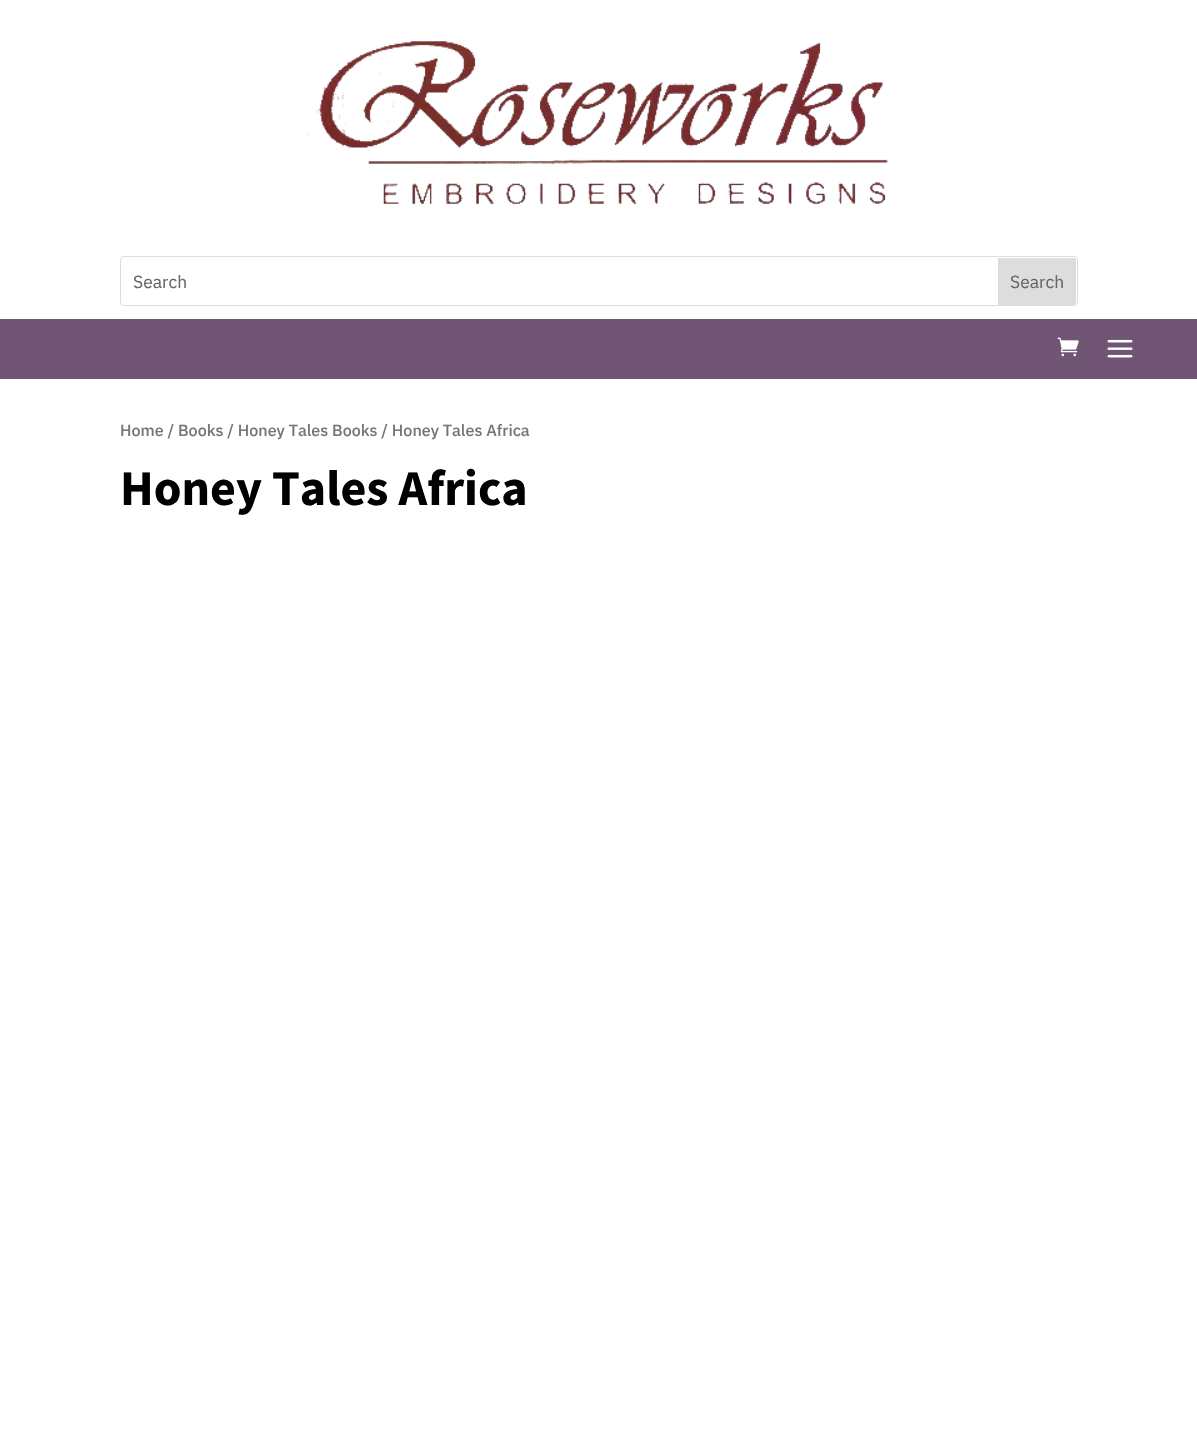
void draw(SkCanvas* c) {
SkPaint p;
p.setAntiAlias(true);
auto F=[&](const char* family, int weight, float size, bool italic = false){SkFontStyle style(weight, SkFontStyle::kNormal_Width,italic ? SkFontStyle::kItalic_Slant : SkFontStyle::kUpright_Slant);SkFont result(fontMgr->matchFamilyStyle(family, style), size);result.setSubpixel(true);return result;};
auto T=[&](const char* s, float x, float y, const SkFont& font){c->drawString(s, x, y, font, p);};
auto R=[&](float x, float y, float w, float h){c->drawRect(SkRect::MakeXYWH(x, y, w, h), p);};
auto I=[&](const char* path, float x, float y, float w, float h){auto image = SkImages::DeferredFromEncodedData(SkData::MakeFromFileName(path));c->drawImageRect(image, SkRect::MakeXYWH(x, y, w, h), SkSamplingOptions());};
auto P=[&](const char* data, bool evenOdd = false){SkPath result = *SkParsePath::FromSVGString(data);if (evenOdd) result.setFillType(SkPathFillType::kEvenOdd);return result;};
c->clear(0xffffffff);
I("1.png",307,41,581,163);
p.setStroke(true);
p.setStrokeWidth(1);
p.setColor(0xffdddddd);
c->drawRoundRect(SkRect::MakeXYWH(120.5,256.5,957,49),3.5,3.5,p);
auto f1 = F("IBM Plex Sans",400,17.5);
p.setStroke(false);
p.setColor(0xff666666);
T("Search",133,288,f1);
p.setColor(0xffdddddd);
c->drawPath(P("M998 258h75.5c1.5 0 2.5 1 2.5 2.5v42c0 1.5-1 2.5-2.5 2.5h-75.5z"),p);
p.setColor(0xff666666);
T("Search",1010,288,f1);
p.setColor(0xff705574);
R(0,319,1197,60);
I("2.png",1057,337,22,20);
I("3.png",1107,339,26,19);
auto f2 = F("IBM Plex Sans",500,16.1);
p.setColor(0xff767676);
T("Home / Books / Honey Tales Books / Honey Tales Africa",120,436,f2);
auto f3 = F("Source Sans Pro",700,50);
p.setColor(0xff000000);
T("Honey Tales Africa",120,505,f3);
}
